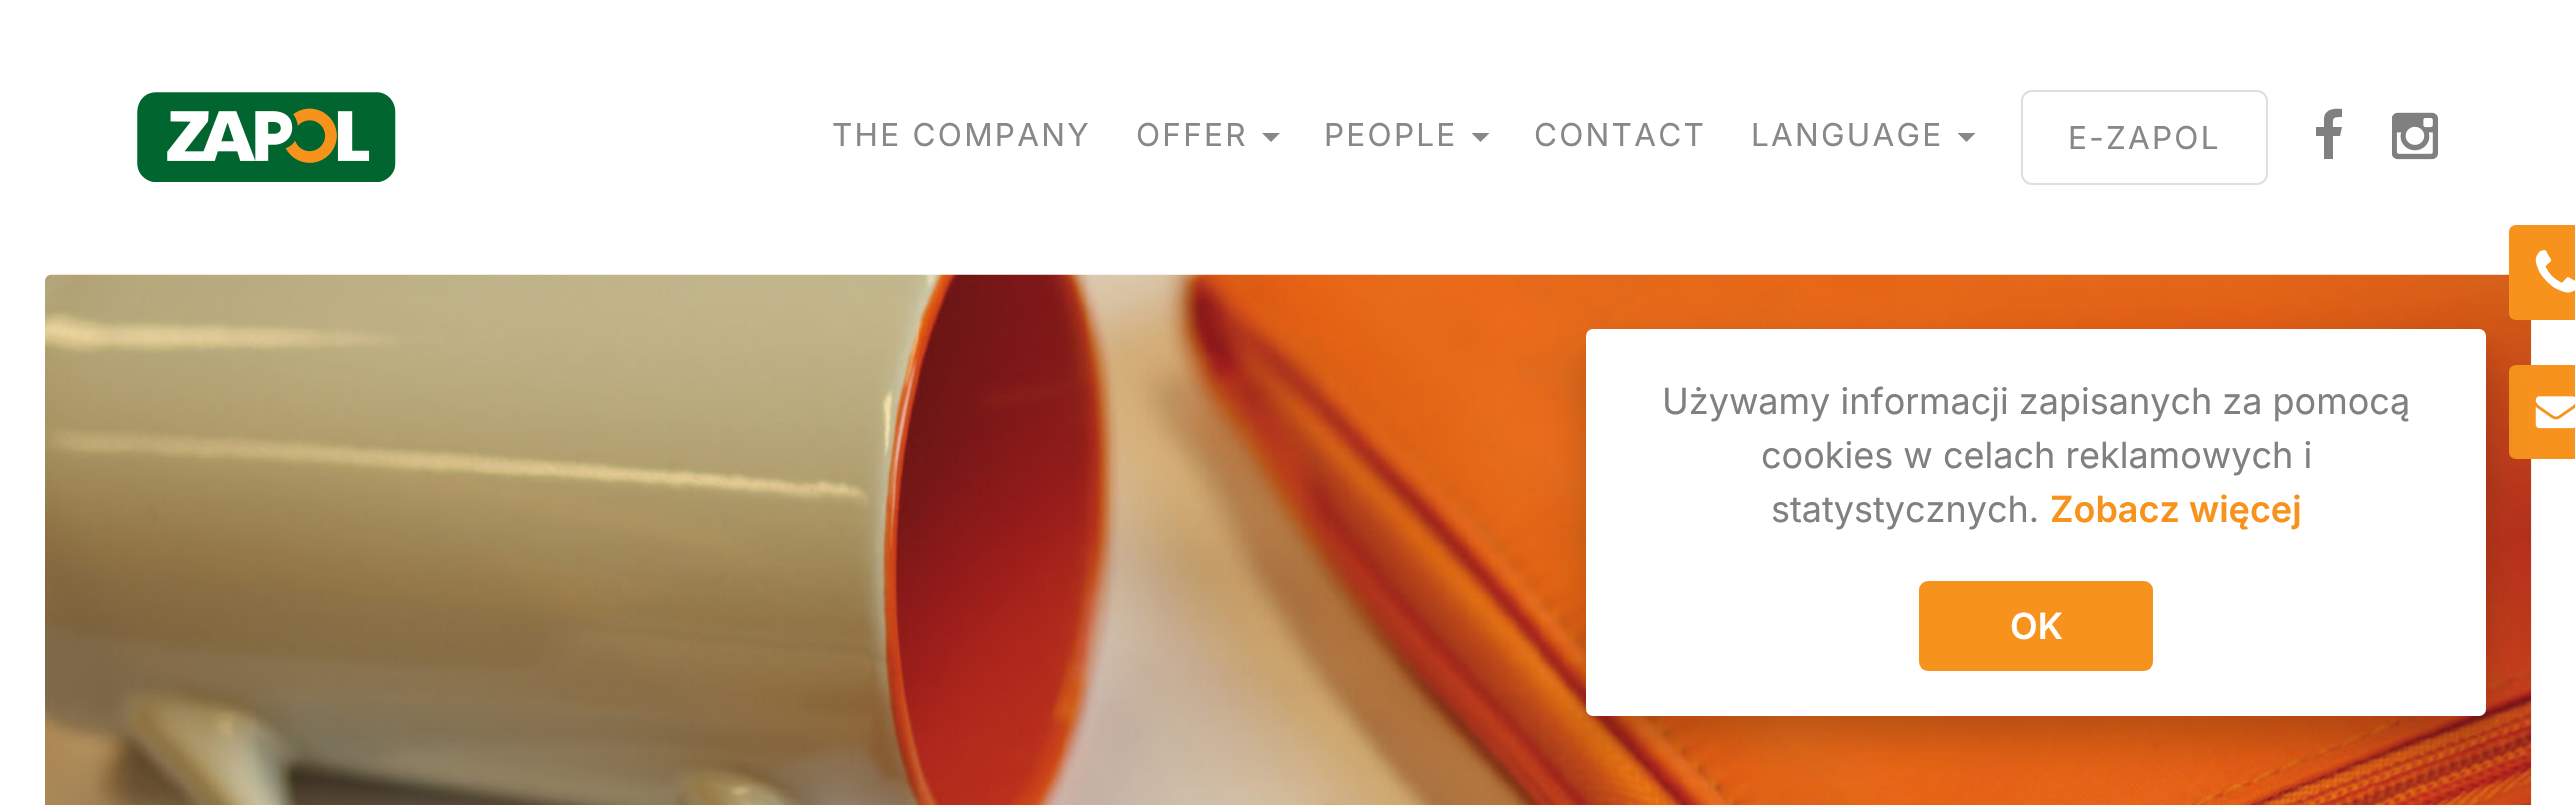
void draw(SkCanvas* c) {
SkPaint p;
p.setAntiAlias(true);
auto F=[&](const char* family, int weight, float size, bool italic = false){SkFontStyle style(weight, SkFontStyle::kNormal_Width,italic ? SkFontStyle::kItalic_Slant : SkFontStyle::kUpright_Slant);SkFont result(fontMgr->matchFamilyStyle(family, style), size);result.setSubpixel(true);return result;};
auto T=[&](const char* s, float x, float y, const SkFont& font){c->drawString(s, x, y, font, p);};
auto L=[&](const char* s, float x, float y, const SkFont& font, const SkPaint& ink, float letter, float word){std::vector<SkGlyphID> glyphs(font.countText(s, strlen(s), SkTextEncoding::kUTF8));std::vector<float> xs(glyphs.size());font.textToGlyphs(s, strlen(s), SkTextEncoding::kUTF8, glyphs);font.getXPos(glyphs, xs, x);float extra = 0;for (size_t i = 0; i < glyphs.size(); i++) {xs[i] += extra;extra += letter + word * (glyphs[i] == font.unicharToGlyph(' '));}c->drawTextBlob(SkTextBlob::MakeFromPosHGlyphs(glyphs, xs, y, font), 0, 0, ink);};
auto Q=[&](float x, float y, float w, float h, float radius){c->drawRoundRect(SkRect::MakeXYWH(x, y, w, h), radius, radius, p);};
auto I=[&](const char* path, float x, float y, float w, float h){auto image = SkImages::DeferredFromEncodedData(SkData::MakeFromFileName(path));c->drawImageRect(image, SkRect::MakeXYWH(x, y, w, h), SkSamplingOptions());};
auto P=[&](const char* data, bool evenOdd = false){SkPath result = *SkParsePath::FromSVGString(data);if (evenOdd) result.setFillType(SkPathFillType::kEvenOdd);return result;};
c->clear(0xffffffff);
I("1.png",137,92,259,90);
auto f1 = F("Inter",400,31.5);
p.setColor(0xff888888);
L("THE COMPANY",832,146,f1,p,2.25,0);
L("OFFER",1136,146,f1,p,2.25,0);
c->drawPath(P("M1262 133h18l-9 9z"),p);
L("PEOPLE",1324,146,f1,p,2.25,0);
c->drawPath(P("M1471.5 133h18l-9 9z"),p);
L("CONTACT",1534,146,f1,p,2.25,0);
L("LANGUAGE",1751,146,f1,p,2.25,0);
c->drawPath(P("M1957.5 133h18l-9 9z"),p);
p.setStroke(true);
p.setStrokeWidth(2);
p.setColor(0xffdfdfdf);
c->drawRoundRect(SkRect::MakeXYWH(2022,91,245,93),10,10,p);
p.setStroke(false);
p.setColor(0xff888888);
L("E-ZAPOL",2068,149,f1,p,2.25,0);
p.setColor(0xff808080);
c->drawPath(P("M2342 109v8c-10 0-9 1-9 10h9l-2 9h-7v23h-9v-23h-8v-9h8v-9c1-9 10-10 18-9z"),p);
I("2.png",2392,112,47,48);
I("3.png",45,274,2487,531);
p.setColor(0xfff7931d);
c->drawPath(P("M2516 225h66v95h-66c-4 0-7-3-7-7v-81c0-4 3-7 7-7z"),p);
I("4.png",2535,250,40,43);
c->drawPath(P("M2516 365h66v94h-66c-4 0-7-3-7-7v-80c0-4 3-7 7-7z"),p);
I("5.png",2535,396,40,33);
p.setColor(0x33000000);
p.setMaskFilter(SkMaskFilter::MakeBlur(kNormal_SkBlurStyle, 22.5));
c->drawRoundRect(SkRect::MakeXYWH(1586,351,900,387),7,7,p);
p.setMaskFilter(nullptr);
p.setColor(0xffffffff);
Q(1586,329,900,387,7);
auto f2 = F("Inter",400,36);
p.setColor(0xff808080);
T("Używamy informacji zapisanych za pomocą",1662,414,f2);
T("cookies w celach reklamowych i",1761,468,f2);
T("statystycznych.",1771,522,f2);
auto f3 = F("Inter",600,36);
p.setColor(0xfff7931d);
T("Zobacz więcej",2050,522,f3);
Q(1919,581,234,90,9);
p.setColor(0xffffffff);
T("OK",2010,639,f3);
}
